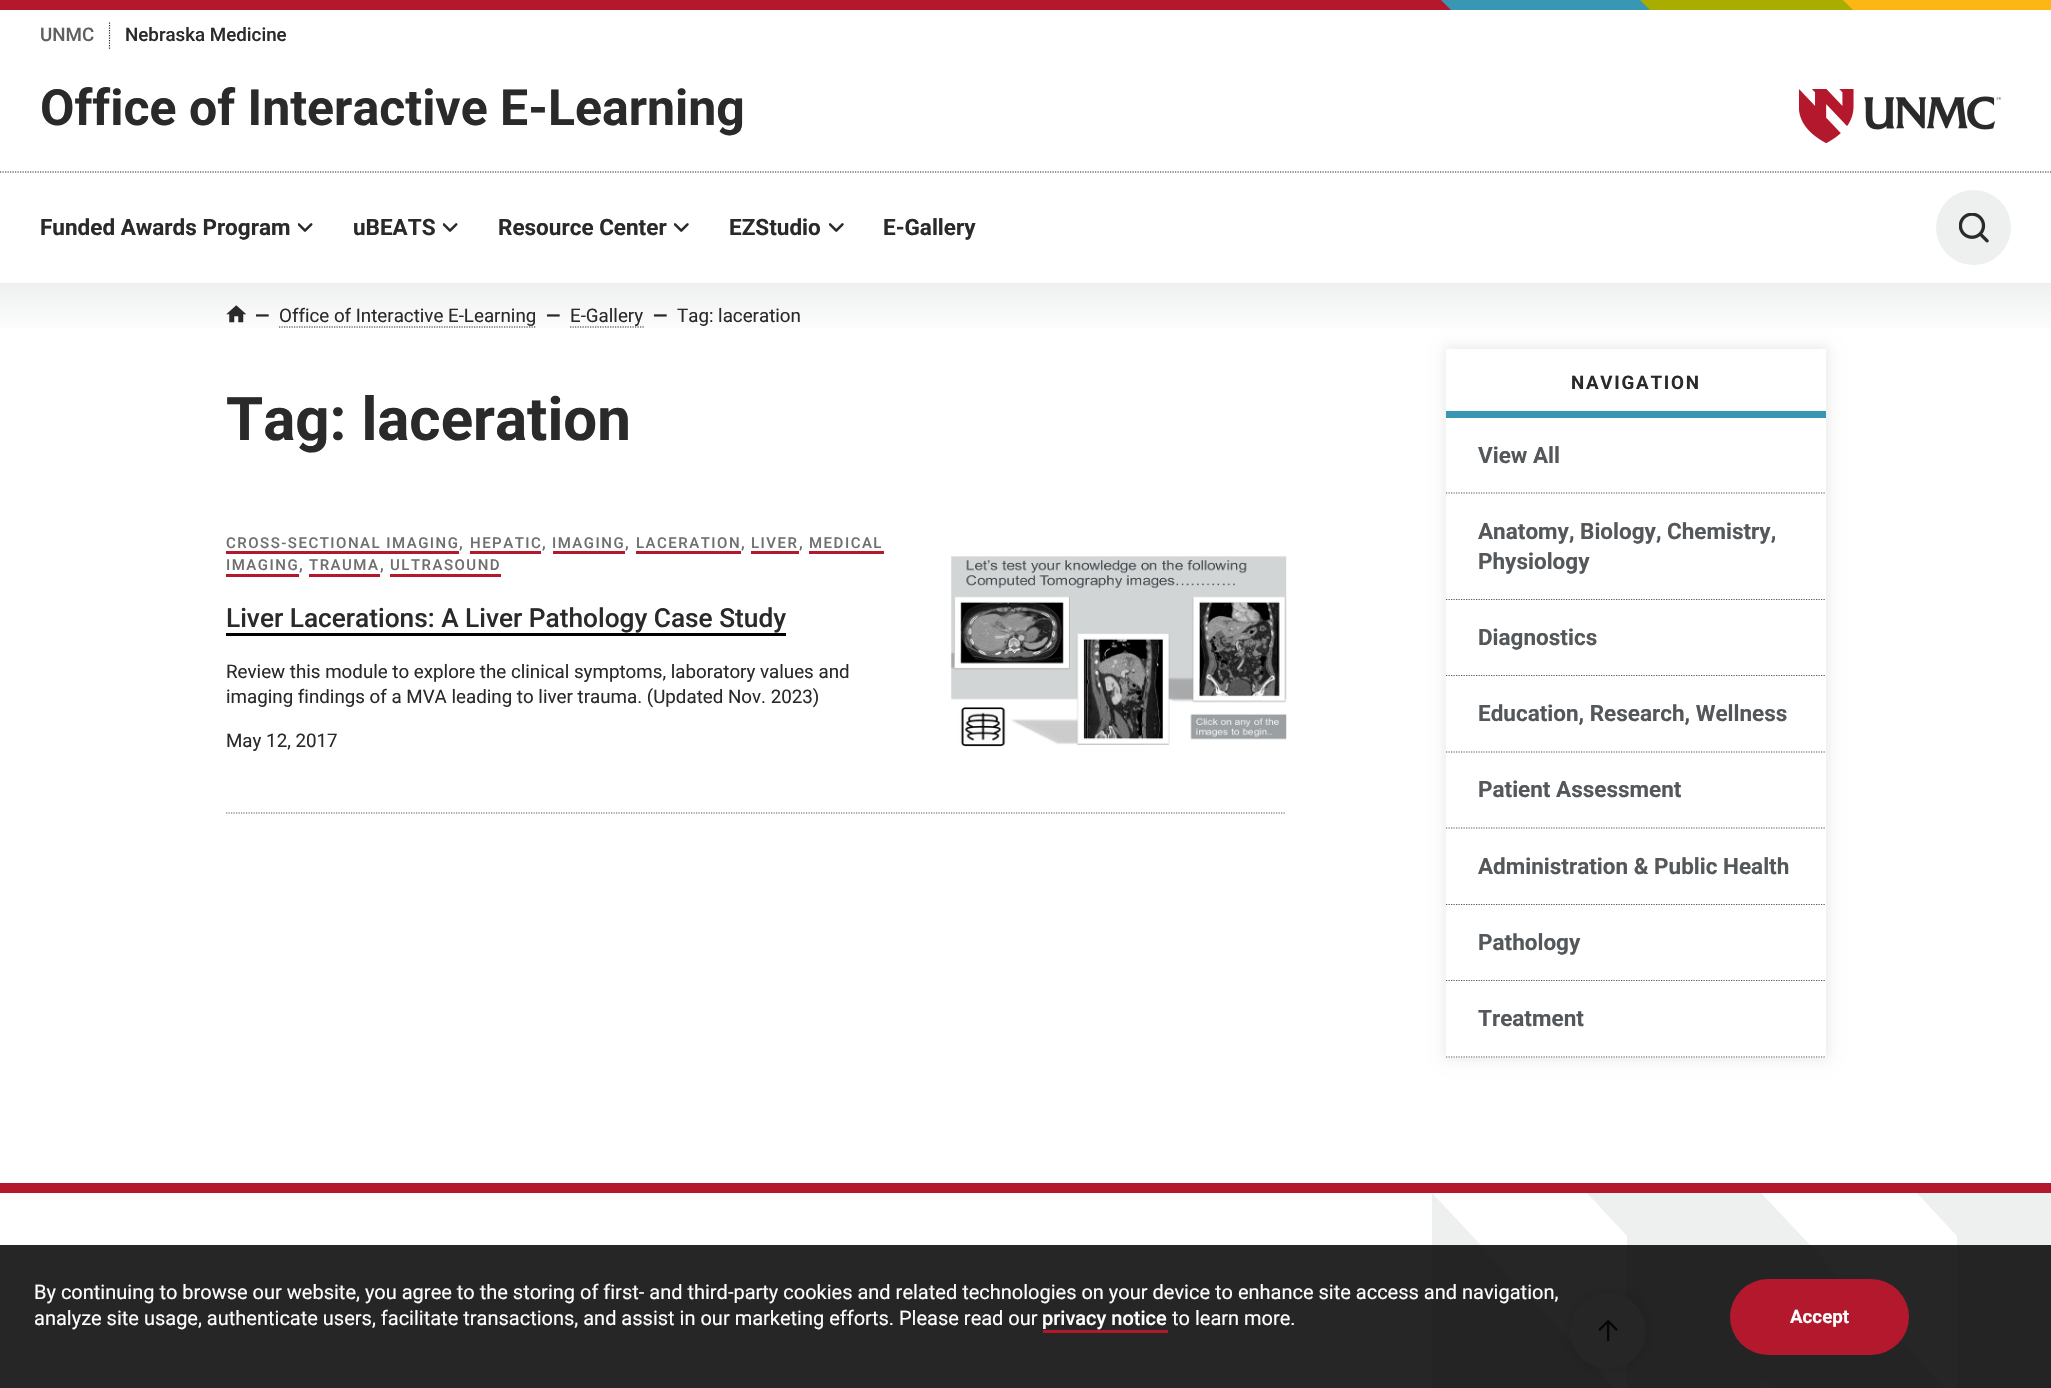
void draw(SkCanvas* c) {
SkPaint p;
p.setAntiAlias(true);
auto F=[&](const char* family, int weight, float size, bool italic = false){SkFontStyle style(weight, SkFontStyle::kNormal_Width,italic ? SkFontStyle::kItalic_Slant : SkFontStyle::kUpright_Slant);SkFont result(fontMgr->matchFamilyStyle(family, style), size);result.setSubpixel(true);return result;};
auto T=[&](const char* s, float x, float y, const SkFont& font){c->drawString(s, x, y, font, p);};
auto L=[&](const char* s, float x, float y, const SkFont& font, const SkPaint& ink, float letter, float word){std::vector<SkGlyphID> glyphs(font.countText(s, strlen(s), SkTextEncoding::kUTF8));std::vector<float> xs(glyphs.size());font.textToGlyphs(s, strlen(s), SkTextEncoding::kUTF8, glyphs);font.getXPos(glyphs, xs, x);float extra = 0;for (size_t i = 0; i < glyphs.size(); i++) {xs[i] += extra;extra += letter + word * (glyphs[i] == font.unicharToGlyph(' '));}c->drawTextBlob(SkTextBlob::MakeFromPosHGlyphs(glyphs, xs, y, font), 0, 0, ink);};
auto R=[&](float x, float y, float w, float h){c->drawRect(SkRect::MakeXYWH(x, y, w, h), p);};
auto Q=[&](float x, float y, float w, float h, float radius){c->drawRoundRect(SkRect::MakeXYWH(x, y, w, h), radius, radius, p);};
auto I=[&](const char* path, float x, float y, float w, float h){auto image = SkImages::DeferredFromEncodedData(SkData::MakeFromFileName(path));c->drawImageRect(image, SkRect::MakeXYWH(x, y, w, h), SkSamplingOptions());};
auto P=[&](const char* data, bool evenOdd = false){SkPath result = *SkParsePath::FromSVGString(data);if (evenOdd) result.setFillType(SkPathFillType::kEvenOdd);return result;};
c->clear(0xffffffff);
p.setColor(0xffb4182d);
R(0,0,1451,10);
p.setColor(0xff3a97b4);
c->drawPath(P("M1441 0l10 10h600v-10z"),p);
p.setColor(0xffa9ad00);
c->drawPath(P("M1640 0l10 10h401v-10z"),p);
p.setColor(0xfffdb714);
c->drawPath(P("M1843 0l10 10h198v-10z"),p);
p.setStroke(true);
p.setStrokeWidth(1.2);
p.setColor(0xff2a2a2a);
p.setPathEffect(SkDashPathEffect::Make({{1.25f,1.25f}}, 0));
c->drawPath(P("M109.5 22.5v26.5"),p);
p.setPathEffect(nullptr);
auto f1 = F("Roboto",500,18.75);
p.setStroke(false);
p.setColor(0xff5f5f5f);
T("UNMC",40,41,f1);
p.setColor(0xff2a2a2a);
T("Nebraska Medicine",125,41,f1);
auto f2 = F("Roboto",700,50);
T("Office of Interactive E-Learning",40,125,f2);
I("1.png",1799,89,202,54);
p.setStroke(true);
p.setPathEffect(SkDashPathEffect::Make({{1.25f,1.25f}}, 0));
c->drawPath(P("M0 172h2051"),p);
p.setPathEffect(nullptr);
I("2.png",298,223,15,9);
auto f3 = F("Roboto",700,22.5);
p.setStroke(false);
T("Funded Awards Program",40,235,f3);
I("2.png",443,223,15,9);
T("uBEATS",353,235,f3);
I("3.png",674,223,15,9);
T("Resource Center",498,235,f3);
I("3.png",829,223,15,9);
T("EZStudio",729,235,f3);
T("E-Gallery",883,235,f3);
p.setColor(0xffeeefef);
c->drawCircle(1973.5,227.5,37.5,p);
I("4.png",1959,213,30,30);
{
const SkColor colors[] = {0xffeeefef,0xffffffff};
const float stops[] = {0,.06};
const SkPoint ends[] = {{1026,282}, {1026,1183}};
p.setShader(SkGradientShader::MakeLinear(ends, colors, stops, 2, SkTileMode::kClamp));
p.setAlpha(255);
}
R(0,283,2051,45);
I("5.png",226,305,20,18);
auto f4 = F("Roboto",700,18.75);
p.setShader(nullptr);
p.setColor(0xff2a2a2a);
T("—",255,322,f4);
auto f5 = F("Roboto",400,18.75);
T("Office of Interactive E-Learning",279,322,f5);
p.setStroke(true);
p.setPathEffect(SkDashPathEffect::Make({{1.25f,1.25f}}, 0));
c->drawPath(P("M279 327h257"),p);
p.setPathEffect(nullptr);
p.setStroke(false);
T("—",546,322,f4);
T("E-Gallery",570,322,f5);
p.setStroke(true);
p.setPathEffect(SkDashPathEffect::Make({{1.25f,1.25f}}, 0));
c->drawPath(P("M570 327h74"),p);
p.setPathEffect(nullptr);
p.setStroke(false);
T("—",653,322,f4);
T("Tag: laceration",677,322,f5);
auto f6 = F("Roboto",700,60);
T("Tag: laceration",226,440,f6);
p.setColor(0x14000000);
p.setMaskFilter(SkMaskFilter::MakeBlur(kNormal_SkBlurStyle, 6));
c->drawRect(SkRect::MakeXYWH(1444,346,385,714),p);
p.setMaskFilter(nullptr);
p.setColor(0xffffffff);
R(1446,349,380,709);
p.setColor(0xff2a2a2a);
L("NAVIGATION",1571,389,f4,p,1.75,0);
p.setColor(0xff3a97b4);
R(1446,411,380,7);
p.setStroke(true);
p.setColor(0xff54585a);
p.setPathEffect(SkDashPathEffect::Make({{1.25f,1.25f}}, 0));
c->drawPath(P("M1446 493h380"),p);
p.setPathEffect(nullptr);
p.setStroke(false);
T("View All",1478,463,f3);
p.setStroke(true);
p.setPathEffect(SkDashPathEffect::Make({{1.25f,1.25f}}, 0));
c->drawPath(P("M1446 599.5h380"),p);
p.setPathEffect(nullptr);
p.setStroke(false);
T("Anatomy, Biology, Chemistry,",1478,539,f3);
T("Physiology",1478,569,f3);
p.setStroke(true);
p.setPathEffect(SkDashPathEffect::Make({{1.25f,1.25f}}, 0));
c->drawPath(P("M1446 675.5h380"),p);
p.setPathEffect(nullptr);
p.setStroke(false);
T("Diagnostics",1478,645,f3);
p.setStroke(true);
p.setPathEffect(SkDashPathEffect::Make({{1.25f,1.25f}}, 0));
c->drawPath(P("M1446 752h380"),p);
p.setPathEffect(nullptr);
p.setStroke(false);
T("Education, Research, Wellness",1478,721,f3);
p.setStroke(true);
p.setPathEffect(SkDashPathEffect::Make({{1.25f,1.25f}}, 0));
c->drawPath(P("M1446 828h380"),p);
p.setPathEffect(nullptr);
p.setStroke(false);
T("Patient Assessment",1478,797,f3);
p.setStroke(true);
p.setPathEffect(SkDashPathEffect::Make({{1.25f,1.25f}}, 0));
c->drawPath(P("M1446 904.5h380"),p);
p.setPathEffect(nullptr);
p.setStroke(false);
T("Administration & Public Health",1478,874,f3);
p.setStroke(true);
p.setPathEffect(SkDashPathEffect::Make({{1.25f,1.25f}}, 0));
c->drawPath(P("M1446 980.5h380"),p);
p.setPathEffect(nullptr);
p.setStroke(false);
T("Pathology",1478,950,f3);
p.setStroke(true);
p.setPathEffect(SkDashPathEffect::Make({{1.25f,1.25f}}, 0));
c->drawPath(P("M1446 1057h380"),p);
p.setPathEffect(nullptr);
p.setStroke(false);
T("Treatment",1478,1026,f3);
p.setStroke(true);
p.setPathEffect(SkDashPathEffect::Make({{1.25f,1.25f}}, 0));
c->drawPath(P("M226 813h1060"),p);
p.setPathEffect(nullptr);
auto f7 = F("Roboto",500,15);
p.setStroke(false);
p.setColor(0xff6f6f6f);
L("CROSS-SECTIONAL IMAGING",226,548,f7,p,1.5,0);
p.setColor(0xffb4182d);
R(226,551,233,3);
auto f8 = F("Roboto",700,15);
p.setColor(0xff6f6f6f);
L(",",459,548,f8,p,1.5,0);
L("HEPATIC",470,548,f7,p,1.5,0);
p.setColor(0xffb4182d);
R(470,551,71,3);
p.setColor(0xff6f6f6f);
L(",",542,548,f8,p,1.5,0);
L("IMAGING",552,548,f7,p,1.5,0);
p.setColor(0xffb4182d);
R(553,551,72,3);
p.setColor(0xff6f6f6f);
L(",",625,548,f8,p,1.5,0);
L("LACERATION",636,548,f7,p,1.5,0);
p.setColor(0xffb4182d);
R(636,551,105,3);
p.setColor(0xff6f6f6f);
L(",",741,548,f8,p,1.5,0);
L("LIVER",751,548,f7,p,1.5,0);
p.setColor(0xffb4182d);
R(751,551,48,3);
p.setColor(0xff6f6f6f);
L(",",799,548,f8,p,1.5,0);
L("MEDICAL",809,548,f7,p,1.5,0);
p.setColor(0xffb4182d);
R(809,551,75,3);
p.setColor(0xff6f6f6f);
L("IMAGING",226,570,f7,p,1.5,0);
p.setColor(0xffb4182d);
R(226,574,73,3);
p.setColor(0xff6f6f6f);
L(",",299,570,f8,p,1.5,0);
L("TRAUMA",309,570,f7,p,1.5,0);
p.setColor(0xffb4182d);
R(309,574,71,3);
p.setColor(0xff6f6f6f);
L(",",380,570,f8,p,1.5,0);
L("ULTRASOUND",390,570,f7,p,1.5,0);
p.setColor(0xffb4182d);
R(390,574,111,3);
auto f9 = F("Roboto",500,26.25);
p.setColor(0xff2a2a2a);
T("Liver Lacerations: A Liver Pathology Case Study",226,627,f9);
p.setColor(0xff000000);
R(226,633,560,3);
p.setColor(0xff2a2a2a);
T("Review this module to explore the clinical symptoms, laboratory values and",226,678,f5);
T("imaging findings of a MVA leading to liver trauma. (Updated Nov. 2023)",226,703,f5);
T("May 12, 2017",226,747,f5);
I("6.png",951,556,336,191);
p.setColor(0xffb4182d);
R(0,1183,2051,10);
c->save();
c->clipRect(SkRect::MakeXYWH(1431,1193,620,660));
p.setColor(0xffeeefef);
c->drawPath(P("M1916 1192l41 44v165l-196-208h-174l40 43v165l-195-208v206c0 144 61 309 329 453c73-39 131-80 176-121l-176-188v-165l252 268c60-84 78-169 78-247v-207z"),p);
c->restore();
p.setColor(0x1a000000);
p.setMaskFilter(SkMaskFilter::MakeBlur(kNormal_SkBlurStyle, 6));
c->drawRoundRect(SkRect::MakeXYWH(1568,1290,81,81),40.5,40.5,p);
p.setMaskFilter(nullptr);
p.setColor(0xffffffff);
c->drawCircle(1608,1331,38,p);
I("7.png",1598,1320,20,21);
p.setColor(0xd9000000);
R(0,1245,2051,143);
auto f10 = F("Roboto",400,20);
p.setColor(0xffffffff);
T("By continuing to browse our website, you agree to the storing of first- and third-party cookies and related technologies on your device to enhance site access and navigation,",34,1299,f10);
T("analyze site usage, authenticate users, facilitate transactions, and assist in our marketing efforts. Please read our",34,1325,f10);
auto f11 = F("Roboto",500,20);
T("privacy notice",1042,1325,f11);
p.setColor(0xffb4182d);
R(1043,1330,125,3);
p.setColor(0xffffffff);
T("to learn more.",1172,1325,f10);
p.setColor(0xffb4182d);
Q(1730,1279,179,76,38);
p.setColor(0xffffffff);
T("Accept",1790,1323,f4);
}
